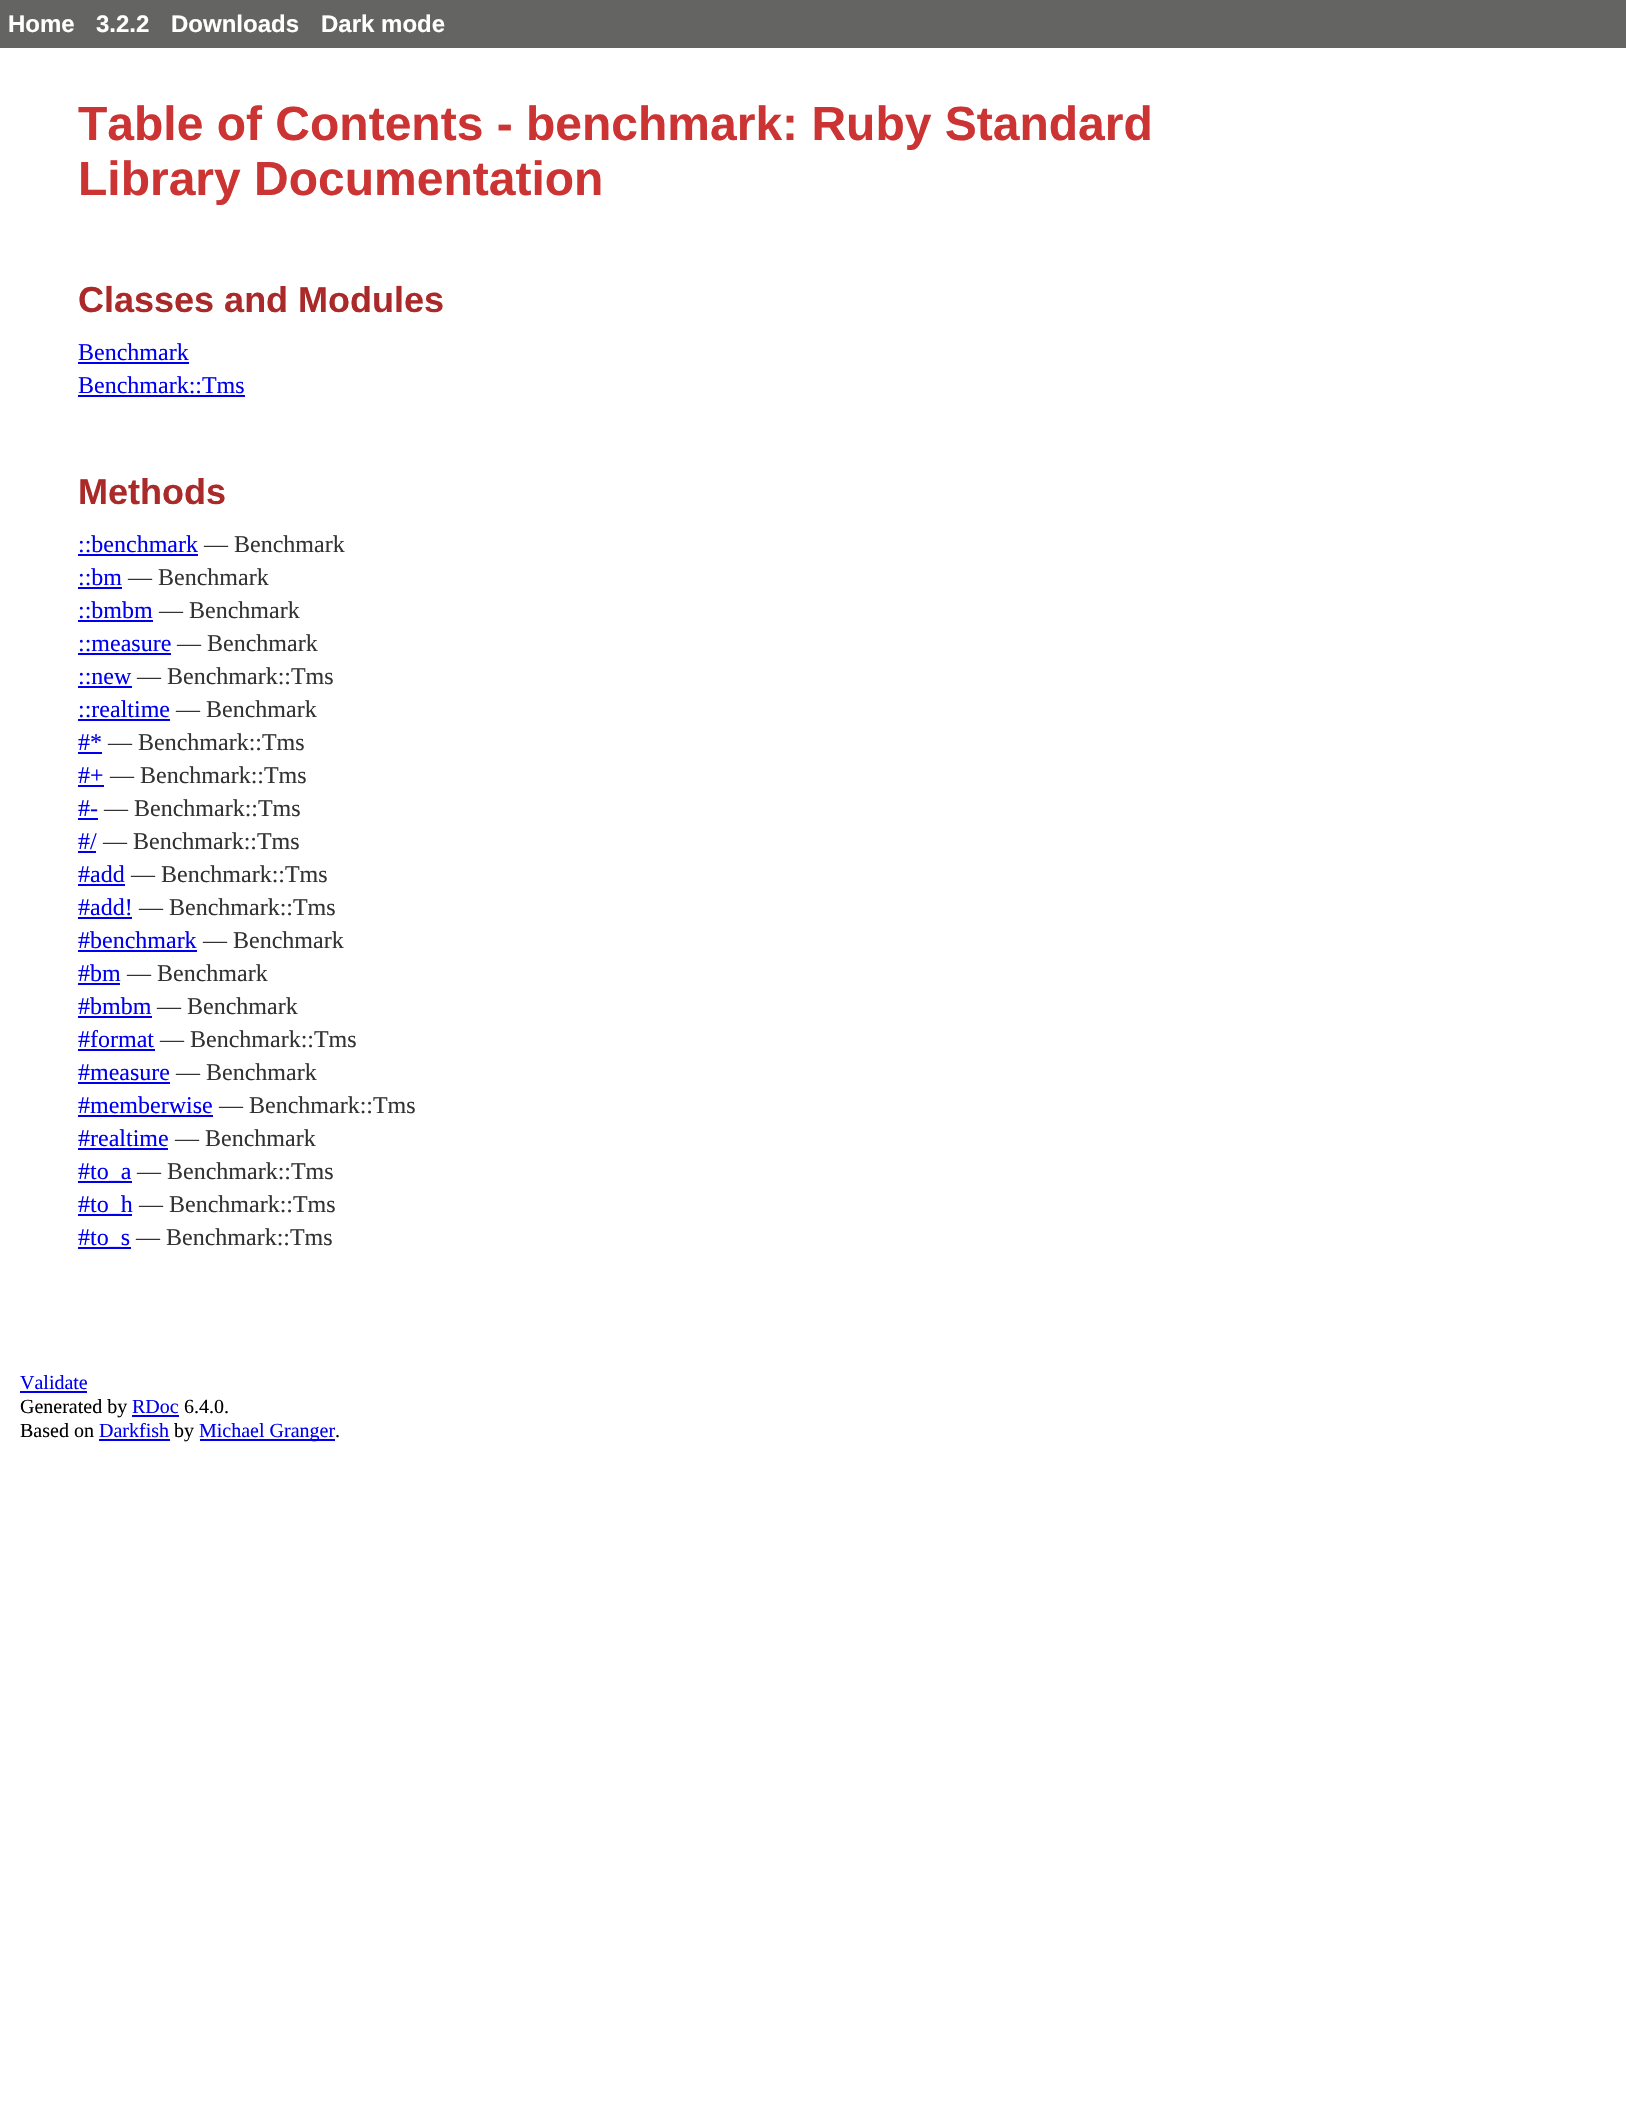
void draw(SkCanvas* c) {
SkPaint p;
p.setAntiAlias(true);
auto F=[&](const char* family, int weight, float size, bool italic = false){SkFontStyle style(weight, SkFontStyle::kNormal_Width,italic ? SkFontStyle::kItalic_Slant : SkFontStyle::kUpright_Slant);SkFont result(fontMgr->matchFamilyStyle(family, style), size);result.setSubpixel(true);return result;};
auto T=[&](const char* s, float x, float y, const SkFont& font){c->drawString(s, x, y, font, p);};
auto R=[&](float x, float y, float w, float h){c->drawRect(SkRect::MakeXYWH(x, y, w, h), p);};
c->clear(0xffffffff);
p.setColor(0xff646462);
R(0,0,1626,48);
auto f1 = F("Liberation Sans",700,24);
p.setColor(0xffffffff);
T("Home",8,32,f1);
T("3.2.2",96,32,f1);
T("Downloads",171,32,f1);
T("Dark mode",321,32,f1);
auto f2 = F("Liberation Sans",700,48);
p.setColor(0xffcc3333);
T("Table of Contents - benchmark: Ruby Standard",78,140,f2);
T("Library Documentation",78,195,f2);
auto f3 = F("Liberation Sans",700,36);
p.setColor(0xffaa2929);
T("Classes and Modules",78,312,f3);
auto f4 = F("Liberation Serif",400,24);
p.setColor(0xff0000ee);
T("Benchmark",78,360,f4);
R(78,362,111,2);
T("Benchmark::Tms",78,393,f4);
R(78,395,167,2);
p.setColor(0xffaa2929);
T("Methods",78,504,f3);
p.setColor(0xff0000ee);
T("::benchmark",78,552,f4);
R(78,554,120,2);
p.setColor(0xff333333);
T("— Benchmark",204,552,f4);
p.setColor(0xff0000ee);
T("::bm",78,585,f4);
R(78,587,44,2);
p.setColor(0xff333333);
T("— Benchmark",128,585,f4);
p.setColor(0xff0000ee);
T("::bmbm",78,618,f4);
R(78,620,75,2);
p.setColor(0xff333333);
T("— Benchmark",159,618,f4);
p.setColor(0xff0000ee);
T("::measure",78,651,f4);
R(78,653,93,2);
p.setColor(0xff333333);
T("— Benchmark",177,651,f4);
p.setColor(0xff0000ee);
T("::new",78,684,f4);
R(78,686,54,2);
p.setColor(0xff333333);
T("— Benchmark::Tms",137,684,f4);
p.setColor(0xff0000ee);
T("::realtime",78,717,f4);
R(78,719,92,2);
p.setColor(0xff333333);
T("— Benchmark",176,717,f4);
p.setColor(0xff0000ee);
T("#*",78,750,f4);
R(78,752,24,2);
p.setColor(0xff333333);
T("— Benchmark::Tms",108,750,f4);
p.setColor(0xff0000ee);
T("#+",78,783,f4);
R(78,785,26,2);
p.setColor(0xff333333);
T("— Benchmark::Tms",110,783,f4);
p.setColor(0xff0000ee);
T("#-",78,816,f4);
R(78,818,20,2);
p.setColor(0xff333333);
T("— Benchmark::Tms",104,816,f4);
p.setColor(0xff0000ee);
T("#/",78,849,f4);
R(78,851,18,2);
p.setColor(0xff333333);
T("— Benchmark::Tms",103,849,f4);
p.setColor(0xff0000ee);
T("#add",78,882,f4);
R(78,884,47,2);
p.setColor(0xff333333);
T("— Benchmark::Tms",131,882,f4);
p.setColor(0xff0000ee);
T("#add!",78,915,f4);
R(78,917,54,2);
p.setColor(0xff333333);
T("— Benchmark::Tms",139,915,f4);
p.setColor(0xff0000ee);
T("#benchmark",78,948,f4);
R(78,950,119,2);
p.setColor(0xff333333);
T("— Benchmark",203,948,f4);
p.setColor(0xff0000ee);
T("#bm",78,981,f4);
R(78,983,42,2);
p.setColor(0xff333333);
T("— Benchmark",127,981,f4);
p.setColor(0xff0000ee);
T("#bmbm",78,1014,f4);
R(78,1016,74,2);
p.setColor(0xff333333);
T("— Benchmark",157,1014,f4);
p.setColor(0xff0000ee);
T("#format",78,1047,f4);
R(78,1049,77,2);
p.setColor(0xff333333);
T("— Benchmark::Tms",160,1047,f4);
p.setColor(0xff0000ee);
T("#measure",78,1080,f4);
R(78,1082,92,2);
p.setColor(0xff333333);
T("— Benchmark",176,1080,f4);
p.setColor(0xff0000ee);
T("#memberwise",78,1113,f4);
R(78,1115,135,2);
p.setColor(0xff333333);
T("— Benchmark::Tms",219,1113,f4);
p.setColor(0xff0000ee);
T("#realtime",78,1146,f4);
R(78,1148,90,2);
p.setColor(0xff333333);
T("— Benchmark",175,1146,f4);
p.setColor(0xff0000ee);
R(78,1181,54,2);
T("#to_a",78,1179,f4);
p.setColor(0xff333333);
T("— Benchmark::Tms",137,1179,f4);
p.setColor(0xff0000ee);
R(78,1214,54,2);
T("#to_h",78,1212,f4);
p.setColor(0xff333333);
T("— Benchmark::Tms",139,1212,f4);
p.setColor(0xff0000ee);
R(78,1247,53,2);
T("#to_s",78,1245,f4);
p.setColor(0xff333333);
T("— Benchmark::Tms",136,1245,f4);
auto f5 = F("Liberation Serif",400,20);
p.setColor(0xff0000ee);
T("Validate",20,1389,f5);
R(20,1391,67,2);
p.setColor(0xff000000);
T("Generated by",20,1413,f5);
p.setColor(0xff0000ee);
T("RDoc",132,1413,f5);
R(132,1415,47,2);
p.setColor(0xff000000);
T("6.4.0.",184,1413,f5);
T("Based on",20,1437,f5);
p.setColor(0xff0000ee);
T("Darkfish",99,1437,f5);
R(99,1439,71,2);
p.setColor(0xff000000);
T("by",174,1437,f5);
p.setColor(0xff0000ee);
R(200,1439,135,2);
T("Michael Granger",199,1437,f5);
p.setColor(0xff000000);
T(".",335,1437,f5);
}
